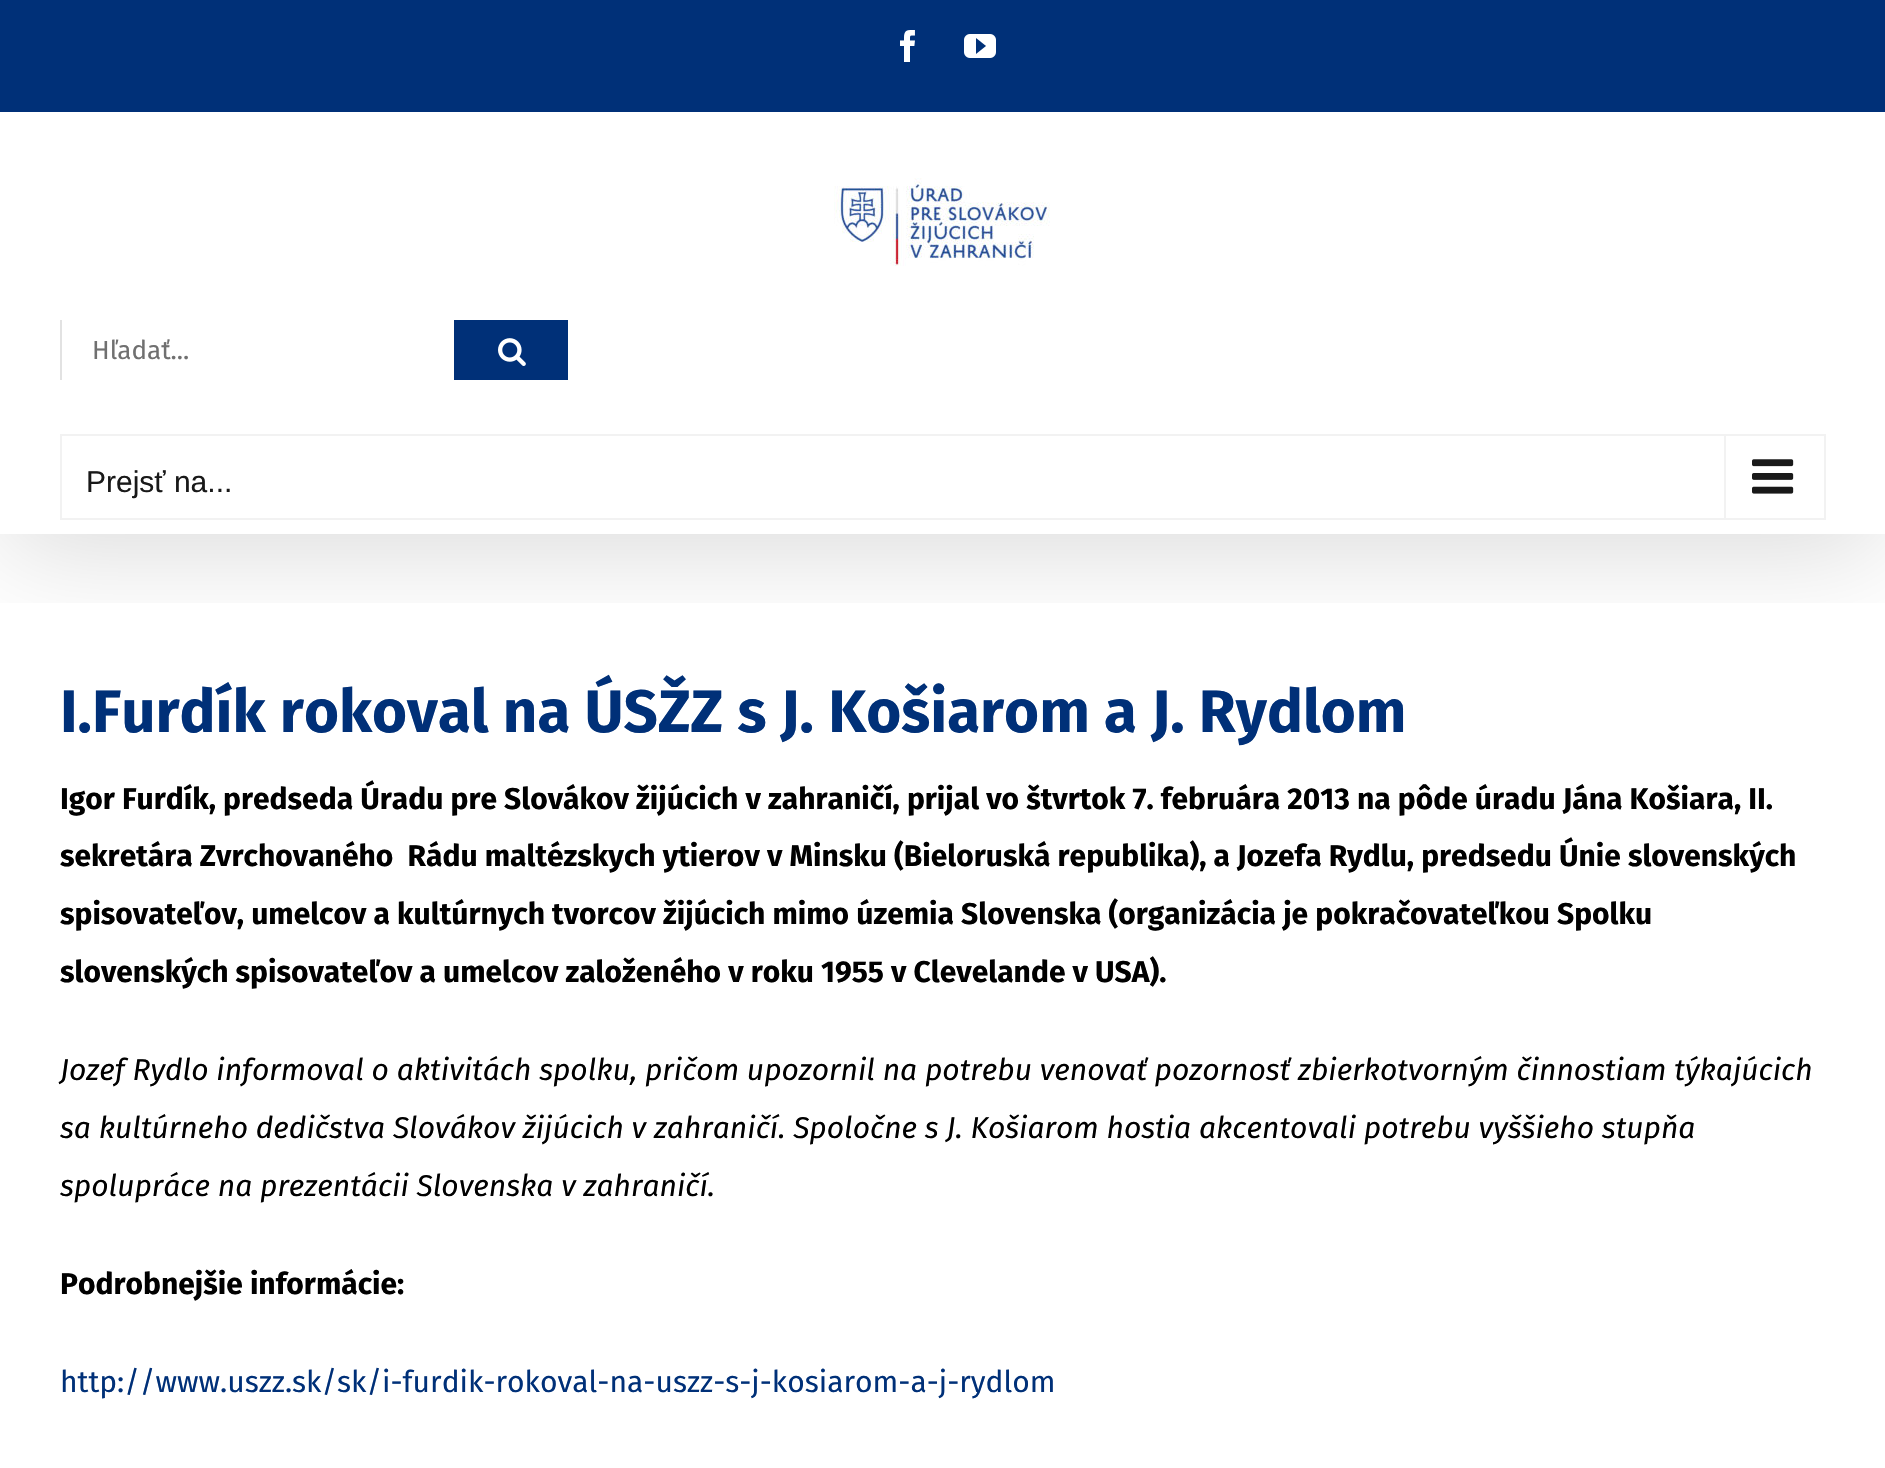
void draw(SkCanvas* c) {
SkPaint p;
p.setAntiAlias(true);
auto F=[&](const char* family, int weight, float size, bool italic = false){SkFontStyle style(weight, SkFontStyle::kNormal_Width,italic ? SkFontStyle::kItalic_Slant : SkFontStyle::kUpright_Slant);SkFont result(fontMgr->matchFamilyStyle(family, style), size);result.setSubpixel(true);return result;};
auto T=[&](const char* s, float x, float y, const SkFont& font){c->drawString(s, x, y, font, p);};
auto R=[&](float x, float y, float w, float h){c->drawRect(SkRect::MakeXYWH(x, y, w, h), p);};
auto I=[&](const char* path, float x, float y, float w, float h){auto image = SkImages::DeferredFromEncodedData(SkData::MakeFromFileName(path));c->drawImageRect(image, SkRect::MakeXYWH(x, y, w, h), SkSamplingOptions());};
c->clear(0xffffffff);
c->save();
c->clipRect(SkRect::MakeXYWH(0,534,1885,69));
p.setColor(0x24000000);
p.setMaskFilter(SkMaskFilter::MakeBlur(kNormal_SkBlurStyle, 50));
c->drawRect(SkRect::MakeXYWH(4,24,1878,526),p);
p.setMaskFilter(nullptr);
c->restore();
p.setColor(0xff003078);
R(0,0,1885,112);
I("1.png",900,30,15,32);
I("2.png",964,34,32,24);
I("3.png",834,178,216,88);
p.setColor(0xffe2e2e2);
R(60,320,2,60);
auto f1 = F("Fira Sans",400,26);
p.setColor(0xff707070);
T("Hľadať...",92,359,f1);
p.setColor(0xff003078);
R(454,320,114,60);
I("4.png",498,338,28,28);
p.setStroke(true);
p.setStrokeWidth(2);
p.setColor(0xfff2f2f2);
c->drawRect(SkRect::MakeXYWH(61,435,1764,84),p);
auto f2 = F("Liberation Sans",400,30);
p.setStroke(false);
p.setColor(0xff191919);
T("Prejsť na...",86,492,f2);
p.setColor(0xfff2f2f2);
R(1724,436,2,82);
I("5.png",1752,459,42,35);
auto f3 = F("Fira Sans",700,60);
p.setColor(0xff003078);
T("I.Furdík rokoval na ÚSŽZ s J. Košiarom a J. Rydlom",60,732,f3);
auto f4 = F("Fira Sans",700,30);
p.setColor(0xff000000);
T("Igor Furdík, predseda Úradu pre Slovákov žijúcich v zahraničí, prijal vo štvrtok 7. februára 2013 na pôde úradu Jána Košiara, II.",60,809,f4);
T("sekretára Zvrchovaného  Rádu maltézskych ytierov v Minsku (Bieloruská republika), a Jozefa Rydlu, predsedu Únie slovenských",60,866,f4);
T("spisovateľov, umelcov a kultúrnych tvorcov žijúcich mimo územia Slovenska (organizácia je pokračovateľkou Spolku",60,924,f4);
T("slovenských spisovateľov a umelcov založeného v roku 1955 v Clevelande v USA).",60,982,f4);
auto f5 = F("Fira Sans",400,30,true);
T("Jozef Rydlo informoval o aktivitách spolku, pričom upozornil na potrebu venovať pozornosť zbierkotvorným činnostiam týkajúcich",60,1080,f5);
T("sa kultúrneho dedičstva Slovákov žijúcich v zahraničí. Spoločne s J. Košiarom hostia akcentovali potrebu vyššieho stupňa",60,1138,f5);
T("spolupráce na prezentácii Slovenska v zahraničí.",60,1196,f5);
T("Podrobnejšie informácie:",60,1294,f4);
auto f6 = F("Fira Sans",400,30);
p.setColor(0xff003078);
T("http://www.uszz.sk/sk/i-furdik-rokoval-na-uszz-s-j-kosiarom-a-j-rydlom",60,1392,f6);
}
